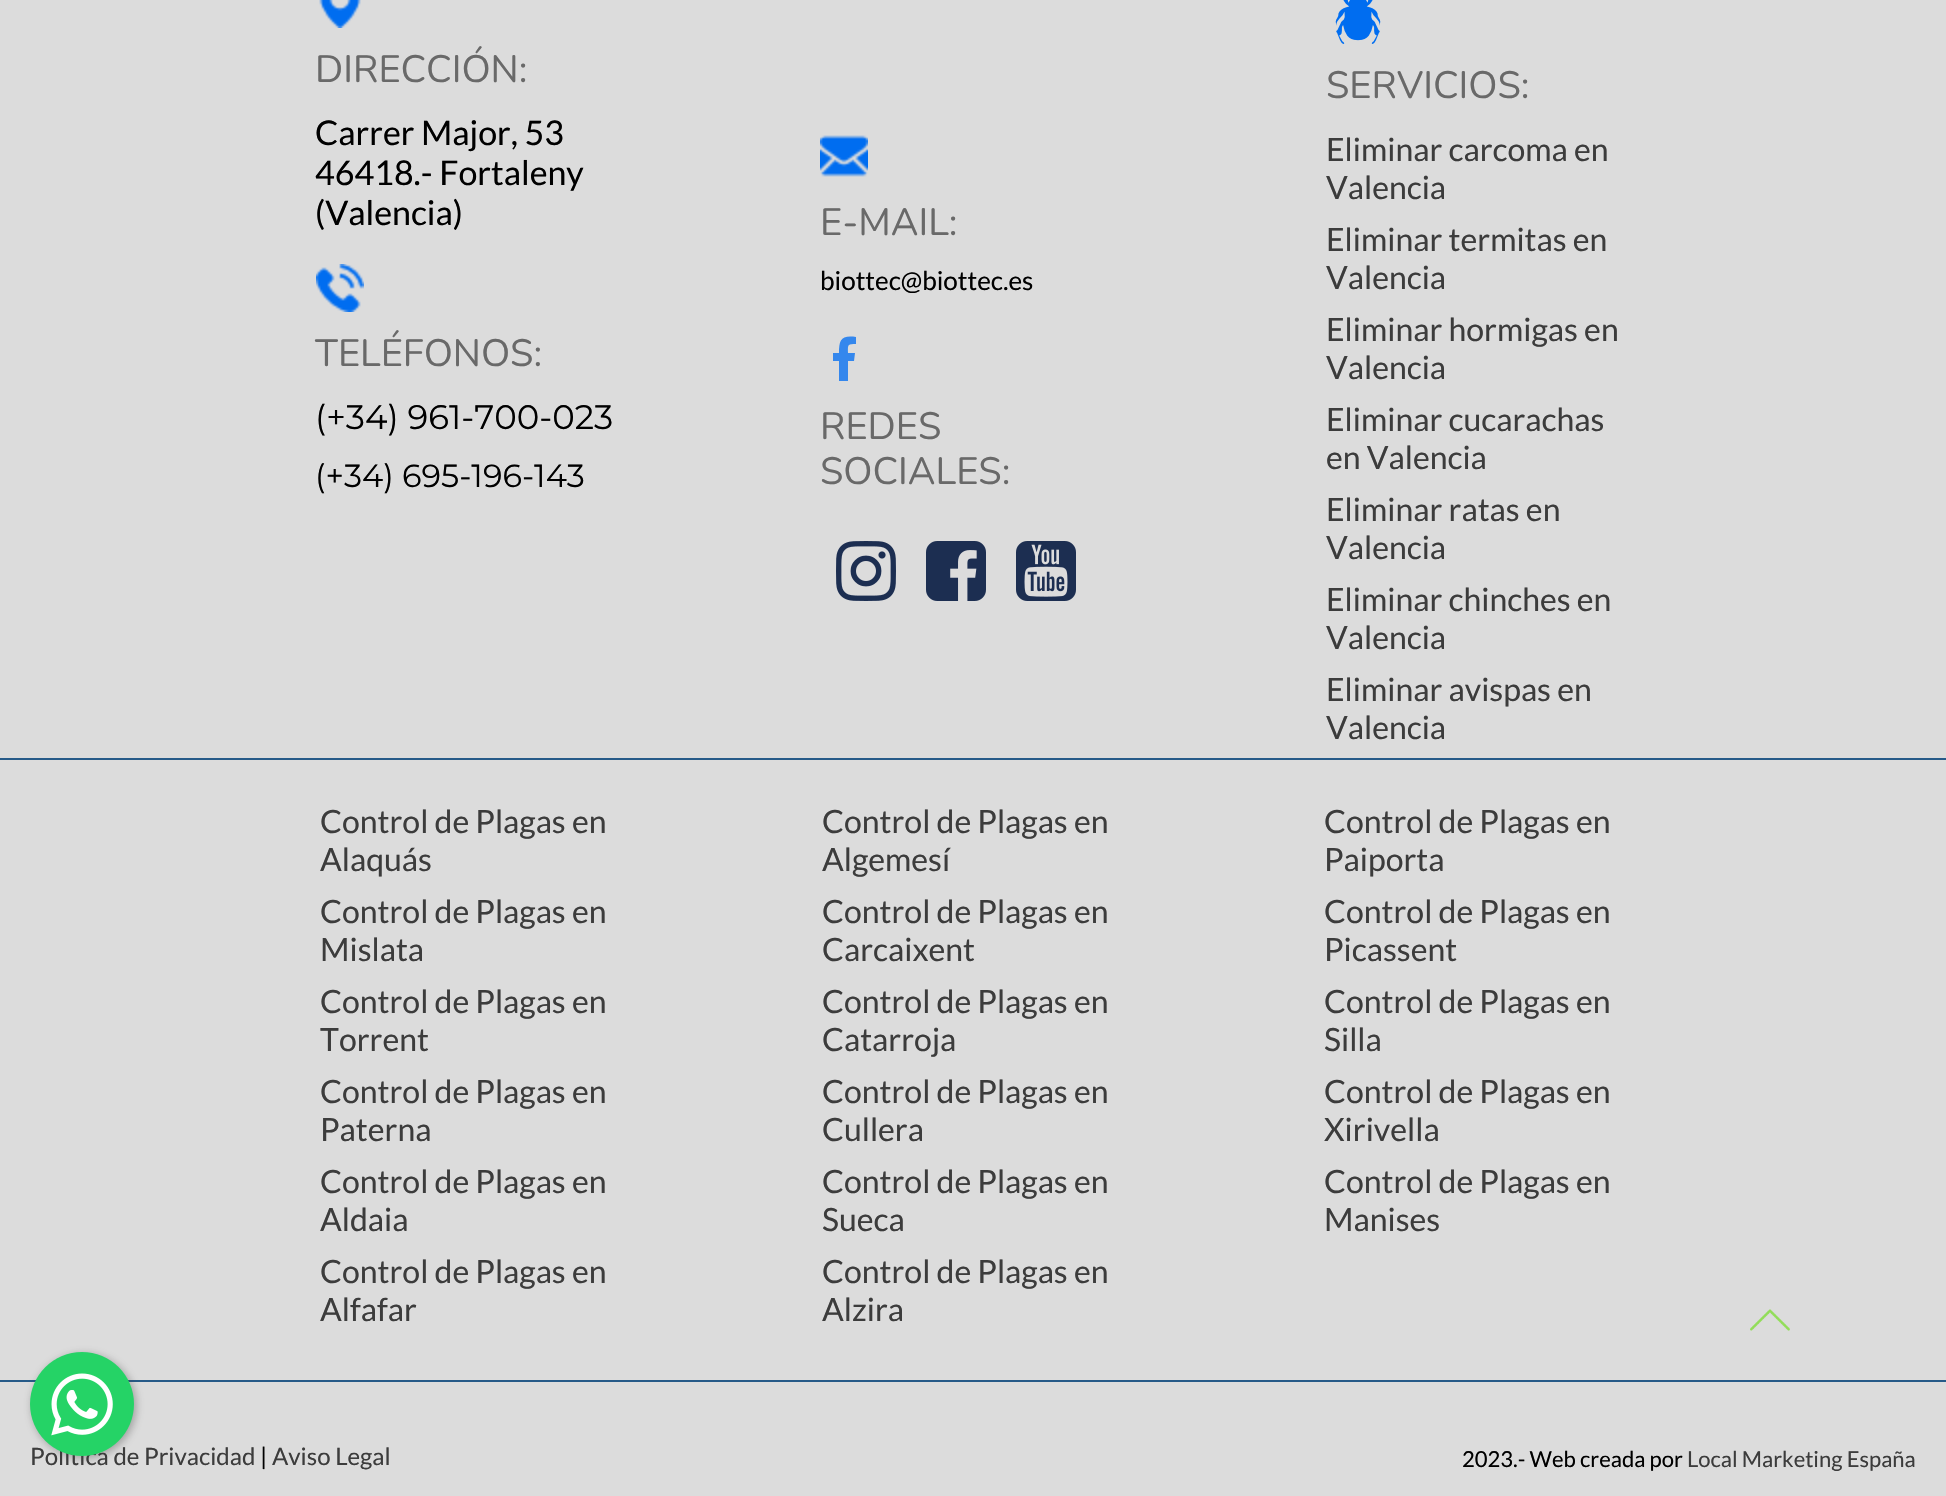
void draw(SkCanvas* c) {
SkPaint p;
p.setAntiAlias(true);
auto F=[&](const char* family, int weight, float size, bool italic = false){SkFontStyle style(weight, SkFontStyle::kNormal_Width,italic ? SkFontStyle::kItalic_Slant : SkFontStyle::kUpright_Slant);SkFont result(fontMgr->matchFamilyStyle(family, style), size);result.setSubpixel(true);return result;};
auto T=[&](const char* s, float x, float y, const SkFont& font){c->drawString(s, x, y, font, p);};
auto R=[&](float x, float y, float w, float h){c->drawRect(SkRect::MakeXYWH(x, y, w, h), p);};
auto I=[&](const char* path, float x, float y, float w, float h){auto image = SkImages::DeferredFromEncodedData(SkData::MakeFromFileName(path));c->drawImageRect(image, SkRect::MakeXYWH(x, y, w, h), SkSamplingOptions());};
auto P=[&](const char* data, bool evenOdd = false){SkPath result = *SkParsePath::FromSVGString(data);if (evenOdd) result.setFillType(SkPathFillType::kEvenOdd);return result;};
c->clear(0xffdcdcdc);
I("1.png",319,0,42,28);
auto f1 = F("Nunito",200,38);
p.setColor(0xff696969);
T("DIRECCIÓN:",315,82,f1);
auto f2 = F("Lato",400,34);
p.setColor(0xff000000);
T("Carrer Major, 53",315,145,f2);
T("46418.- Fortaleny",315,185,f2);
T("(Valencia)",315,225,f2);
I("2.png",316,264,48,48);
p.setColor(0xff696969);
T("TELÉFONOS:",315,366,f1);
auto f3 = F("Montserrat",100,34);
p.setColor(0xff000000);
T("(+34) 961-700-023",315,429,f3);
auto f4 = F("Montserrat",100,32);
T("(+34) 695-196-143",315,487,f4);
I("3.png",820,135,48,42);
p.setColor(0xff696969);
T("E-MAIL:",820,235,f1);
auto f5 = F("Lato",400,26);
p.setColor(0xff000000);
T("biottec@biottec.es",820,290,f5);
p.setColor(0xff3487ed);
c->drawPath(P("M856 337v7c-9 0-8 1-8 9h7l-1 8h-6v20h-9v-20h-6v-8h6c0-13 2-18 17-16z"),p);
p.setColor(0xff696969);
T("REDES",820,439,f1);
T("SOCIALES:",820,484,f1);
I("4.png",836,541,60,60);
I("5.png",926,541,60,60);
I("6.png",1016,541,60,60);
I("7.png",1335,0,46,44);
T("SERVICIOS:",1326,98,f1);
auto f6 = F("Lato",400,32);
p.setColor(0xff3c3c3c);
T("Eliminar carcoma en",1326,161,f6);
T("Valencia",1326,199,f6);
T("Eliminar termitas en",1326,251,f6);
T("Valencia",1326,289,f6);
T("Eliminar hormigas en",1326,341,f6);
T("Valencia",1326,379,f6);
T("Eliminar cucarachas",1326,431,f6);
T("en Valencia",1326,469,f6);
T("Eliminar ratas en",1326,521,f6);
T("Valencia",1326,559,f6);
T("Eliminar chinches en",1326,611,f6);
T("Valencia",1326,649,f6);
T("Eliminar avispas en",1326,701,f6);
T("Valencia",1326,739,f6);
p.setColor(0xff265a88);
R(0,758,1946,2);
R(0,1380,1946,2);
p.setColor(0xff3c3c3c);
T("Control de Plagas en",320,833,f6);
T("Alaquás",320,871,f6);
T("Control de Plagas en",320,923,f6);
T("Mislata",320,961,f6);
T("Control de Plagas en",320,1013,f6);
T("Torrent",320,1051,f6);
T("Control de Plagas en",320,1103,f6);
T("Paterna",320,1141,f6);
T("Control de Plagas en",320,1193,f6);
T("Aldaia",320,1231,f6);
T("Control de Plagas en",320,1283,f6);
T("Alfafar",320,1321,f6);
T("Control de Plagas en",822,833,f6);
T("Algemesí",822,871,f6);
T("Control de Plagas en",822,923,f6);
T("Carcaixent",822,961,f6);
T("Control de Plagas en",822,1013,f6);
T("Catarroja",822,1051,f6);
T("Control de Plagas en",822,1103,f6);
T("Cullera",822,1141,f6);
T("Control de Plagas en",822,1193,f6);
T("Sueca",822,1231,f6);
T("Control de Plagas en",822,1283,f6);
T("Alzira",822,1321,f6);
T("Control de Plagas en",1324,833,f6);
T("Paiporta",1324,871,f6);
T("Control de Plagas en",1324,923,f6);
T("Picassent",1324,961,f6);
T("Control de Plagas en",1324,1013,f6);
T("Silla",1324,1051,f6);
T("Control de Plagas en",1324,1103,f6);
T("Xirivella",1324,1141,f6);
T("Control de Plagas en",1324,1193,f6);
T("Manises",1324,1231,f6);
I("8.png",1750,1309,40,22);
p.setColor(0x663c3c3c);
p.setMaskFilter(SkMaskFilter::MakeBlur(kNormal_SkBlurStyle, 4));
c->drawRoundRect(SkRect::MakeXYWH(32,1354,104,104),52,52,p);
p.setMaskFilter(nullptr);
auto f7 = F("Lato",400,24);
p.setColor(0xff3c3c3c);
T("Política de Privacidad",30,1465,f7);
I("9.png",30,1352,104,104);
p.setColor(0xff000000);
T("|",260,1465,f7);
p.setColor(0xff3c3c3c);
T("Aviso Legal",272,1465,f7);
auto f8 = F("Lato",400,22);
p.setColor(0xff000000);
T("2023.- Web creada por",1462,1467,f8);
p.setColor(0xff3c3c3c);
T("Local Marketing España",1687,1467,f8);
}
